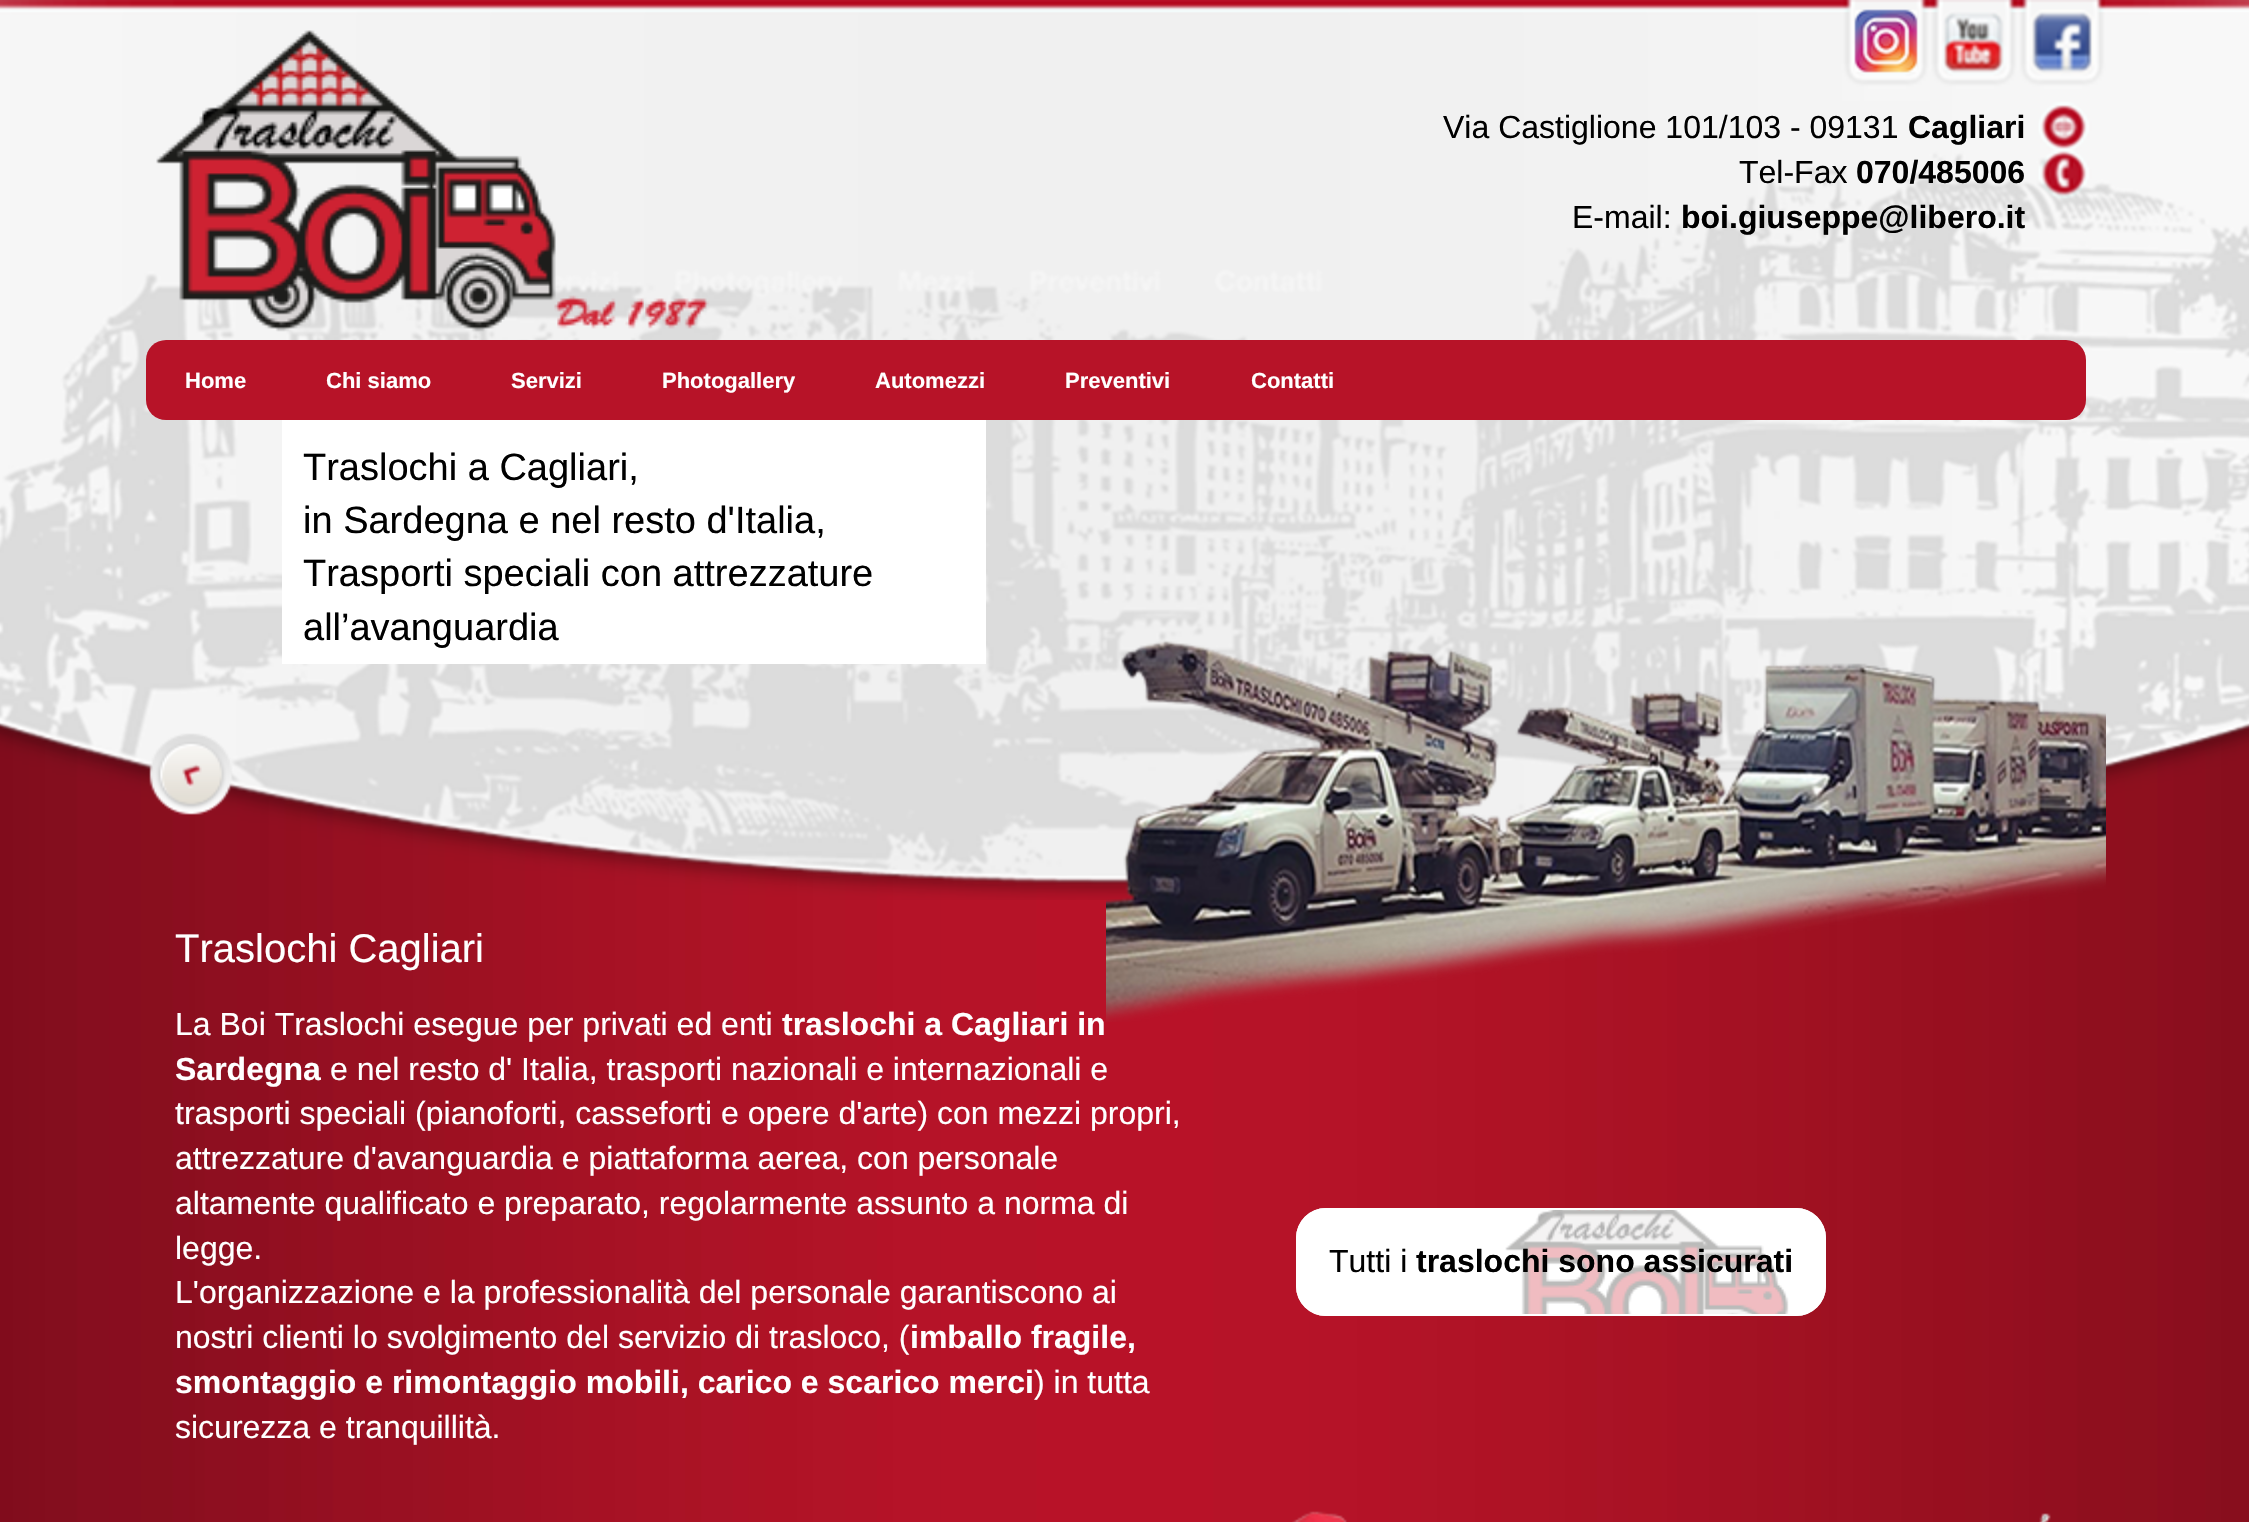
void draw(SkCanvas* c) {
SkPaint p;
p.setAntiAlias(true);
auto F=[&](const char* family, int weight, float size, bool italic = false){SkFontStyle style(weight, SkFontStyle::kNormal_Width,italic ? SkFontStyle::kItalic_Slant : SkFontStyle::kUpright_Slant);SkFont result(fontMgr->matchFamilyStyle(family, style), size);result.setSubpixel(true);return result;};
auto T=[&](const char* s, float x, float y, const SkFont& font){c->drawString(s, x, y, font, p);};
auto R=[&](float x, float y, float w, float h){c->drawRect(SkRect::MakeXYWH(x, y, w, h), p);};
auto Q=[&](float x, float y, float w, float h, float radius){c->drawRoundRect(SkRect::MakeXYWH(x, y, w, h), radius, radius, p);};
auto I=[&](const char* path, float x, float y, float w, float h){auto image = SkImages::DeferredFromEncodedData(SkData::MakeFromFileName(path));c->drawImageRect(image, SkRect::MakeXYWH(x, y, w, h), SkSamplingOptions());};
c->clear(0xffffffff);
I("1.png",0,0,2249,1522);
I("2.png",0,0,2249,900);
I("3.png",156,30,553,302);
auto f1 = F("Liberation Sans",400,32);
p.setColor(0xff000000);
T("Via Castiglione 101/103 - 09131",1443,138,f1);
auto f2 = F("Liberation Sans",700,32);
T("Cagliari",1908,138,f2);
T("Tel-Fax",1739,183,f1);
T("070/485006",1856,183,f2);
T("E-mail:",1572,228,f1);
T("boi.giuseppe@libero.it",1681,228,f2);
p.setColor(0xffb71328);
Q(146,340,1940,80,20);
auto f3 = F("Liberation Sans",700,22);
p.setColor(0xffffffff);
T("Home",185,388,f3);
T("Chi siamo",326,388,f3);
T("Servizi",511,388,f3);
T("Photogallery",662,388,f3);
T("Automezzi",875,388,f3);
T("Preventivi",1065,388,f3);
T("Contatti",1251,388,f3);
R(282,420,704,244);
auto f4 = F("Liberation Sans",400,38);
p.setColor(0xff000000);
T("Traslochi a Cagliari,",303,480,f4);
T("in Sardegna e nel resto d'Italia,",303,533,f4);
T("Trasporti speciali con attrezzature",303,586,f4);
T("all’avanguardia",303,640,f4);
I("4.png",149,733,84,82);
I("5.png",1106,640,1000,382);
auto f5 = F("Liberation Sans",400,40);
p.setColor(0xffffffff);
T("Traslochi Cagliari",175,962,f5);
T("La Boi Traslochi esegue per privati ed enti",175,1035,f1);
T("traslochi a Cagliari in",782,1035,f2);
T("Sardegna",175,1080,f2);
T("e nel resto d' Italia, trasporti nazionali e internazionali e",330,1080,f1);
T("trasporti speciali (pianoforti, casseforti e opere d'arte) con mezzi propri,",175,1124,f1);
T("attrezzature d'avanguardia e piattaforma aerea, con personale",175,1169,f1);
T("altamente qualificato e preparato, regolarmente assunto a norma di",175,1214,f1);
T("legge.",175,1259,f1);
T("L'organizzazione e la professionalità del personale garantiscono ai",175,1303,f1);
T("nostri clienti lo svolgimento del servizio di trasloco, (",175,1348,f1);
T("imballo fragile,",910,1348,f2);
T("smontaggio e rimontaggio mobili, carico e scarico merci",175,1393,f2);
T(") in tutta",1034,1393,f1);
T("sicurezza e tranquillità.",175,1438,f1);
Q(1296,1208,530,108,30);
I("6.png",1505,1210,284,104);
p.setStroke(true);
p.setStrokeWidth(2);
c->drawRoundRect(SkRect::MakeXYWH(1297,1209,528,106),29,29,p);
p.setStroke(false);
p.setColor(0xff000000);
T("Tutti i",1329,1272,f1);
T("traslochi sono assicurati",1416,1272,f2);
I("7.png",1292,1511,55,11);
I("8.png",2039,1513,12,9);
}
